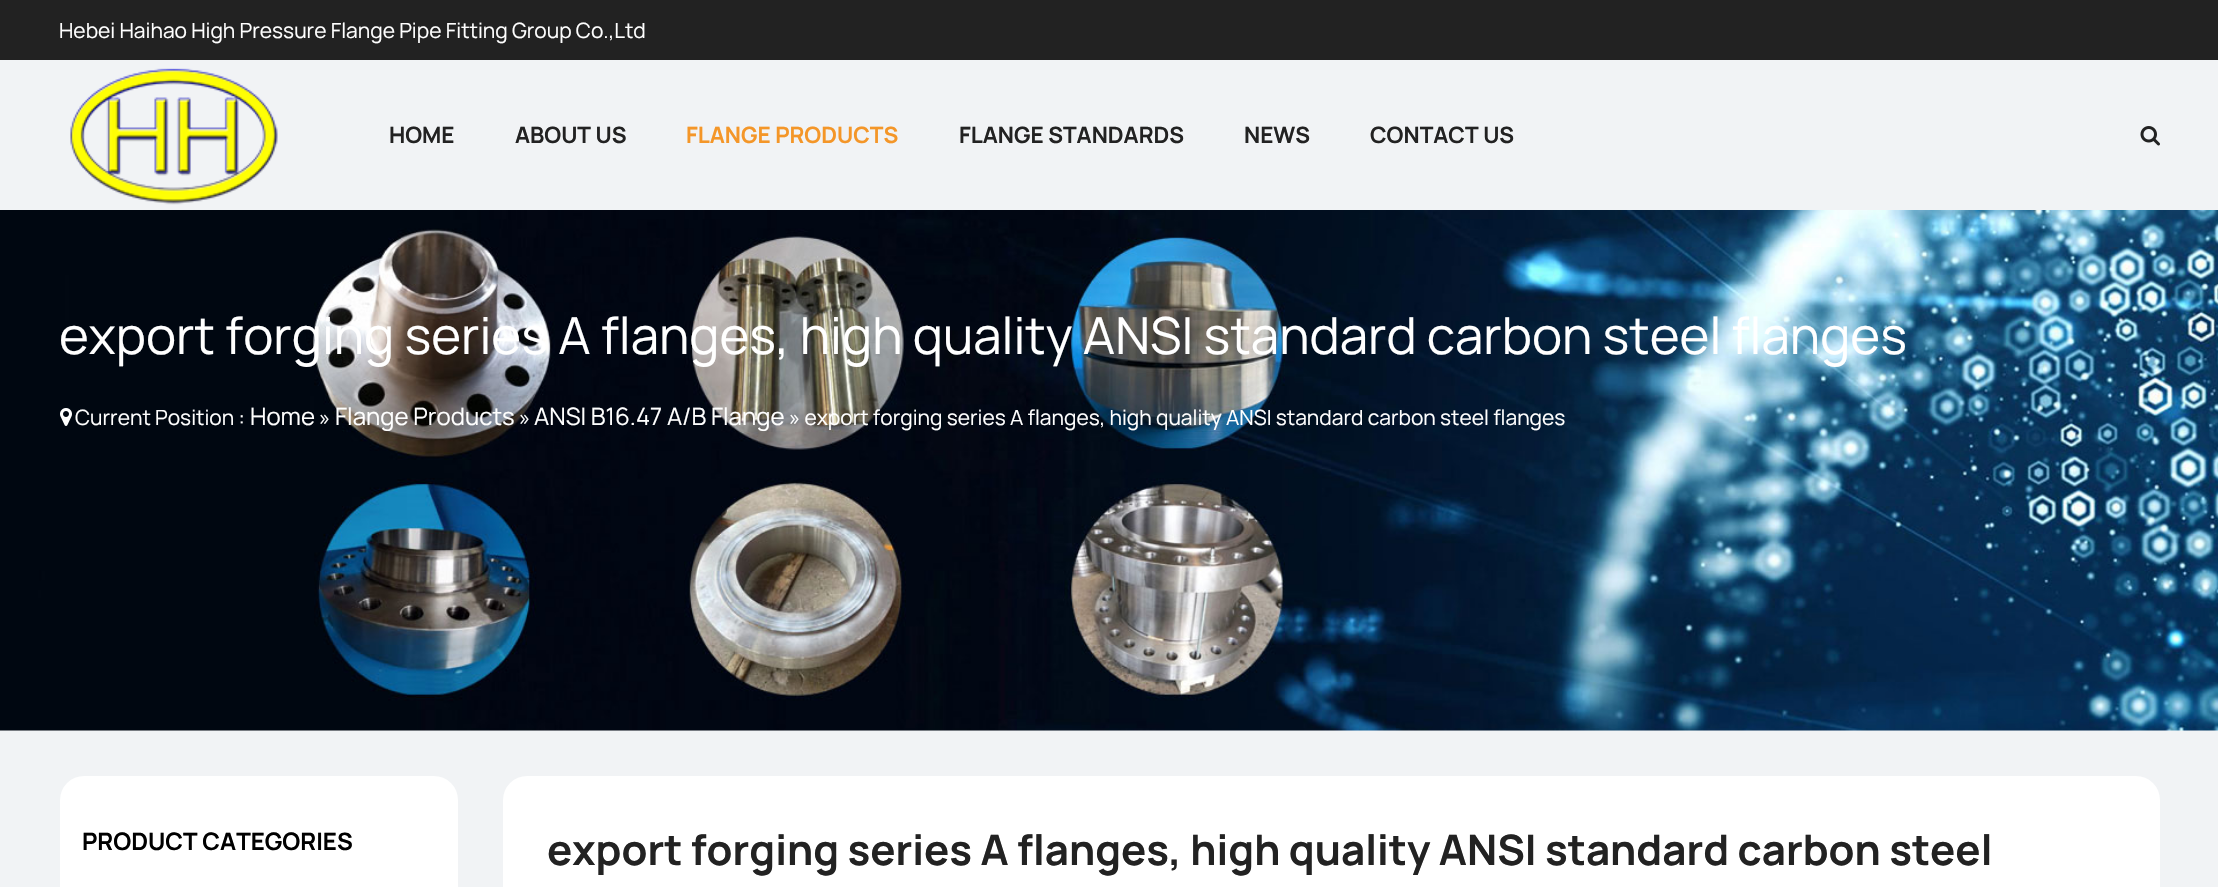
void draw(SkCanvas* c) {
SkPaint p;
p.setAntiAlias(true);
auto F=[&](const char* family, int weight, float size, bool italic = false){SkFontStyle style(weight, SkFontStyle::kNormal_Width,italic ? SkFontStyle::kItalic_Slant : SkFontStyle::kUpright_Slant);SkFont result(fontMgr->matchFamilyStyle(family, style), size);result.setSubpixel(true);return result;};
auto T=[&](const char* s, float x, float y, const SkFont& font){c->drawString(s, x, y, font, p);};
auto R=[&](float x, float y, float w, float h){c->drawRect(SkRect::MakeXYWH(x, y, w, h), p);};
auto Q=[&](float x, float y, float w, float h, float radius){c->drawRoundRect(SkRect::MakeXYWH(x, y, w, h), radius, radius, p);};
auto I=[&](const char* path, float x, float y, float w, float h){auto image = SkImages::DeferredFromEncodedData(SkData::MakeFromFileName(path));c->drawImageRect(image, SkRect::MakeXYWH(x, y, w, h), SkSamplingOptions());};
c->clear(0xfff1f3f5);
p.setColor(0xff222222);
R(0,0,2218,60);
auto f1 = F("Manrope",400,21);
p.setColor(0xffffffff);
T("Hebei Haihao High Pressure Flange Pipe Fitting Group Co.,Ltd",59,38,f1);
I("1.png",70,68,208,137);
auto f2 = F("Manrope",700,22.5);
p.setColor(0xff222222);
T("HOME",389,143,f2);
T("ABOUT US",515,143,f2);
p.setColor(0xfff49628);
T("FLANGE PRODUCTS",686,143,f2);
p.setColor(0xff222222);
T("FLANGE STANDARDS",959,143,f2);
T("NEWS",1244,143,f2);
T("CONTACT US",1370,143,f2);
I("2.png",2140,126,20,20);
I("3.png",0,210,2218,521);
auto f3 = F("Manrope",400,51);
p.setColor(0xffffffff);
T("export forging series A flanges, high quality ANSI standard carbon steel flanges",59,354,f3);
I("4.png",60,408,12,18);
T("Current Position :",75,425,f1);
auto f4 = F("Manrope",400,24);
T("Home",250,425,f4);
T("»",319,425,f1);
T("Flange Products",335,425,f4);
T("»",519,425,f1);
T("ANSI B16.47 A/B Flange",534,425,f4);
T("» export forging series A flanges, high quality ANSI standard carbon steel flanges",789,425,f1);
Q(60,776,398,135,24);
auto f5 = F("Manrope",700,24);
p.setColor(0xff000000);
T("PRODUCT CATEGORIES",82,850,f5);
p.setColor(0xffffffff);
Q(503,776,1657,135,24);
auto f6 = F("Manrope",700,42);
p.setColor(0xff222222);
T("export forging series A flanges, high quality ANSI standard carbon steel",547,865,f6);
}
